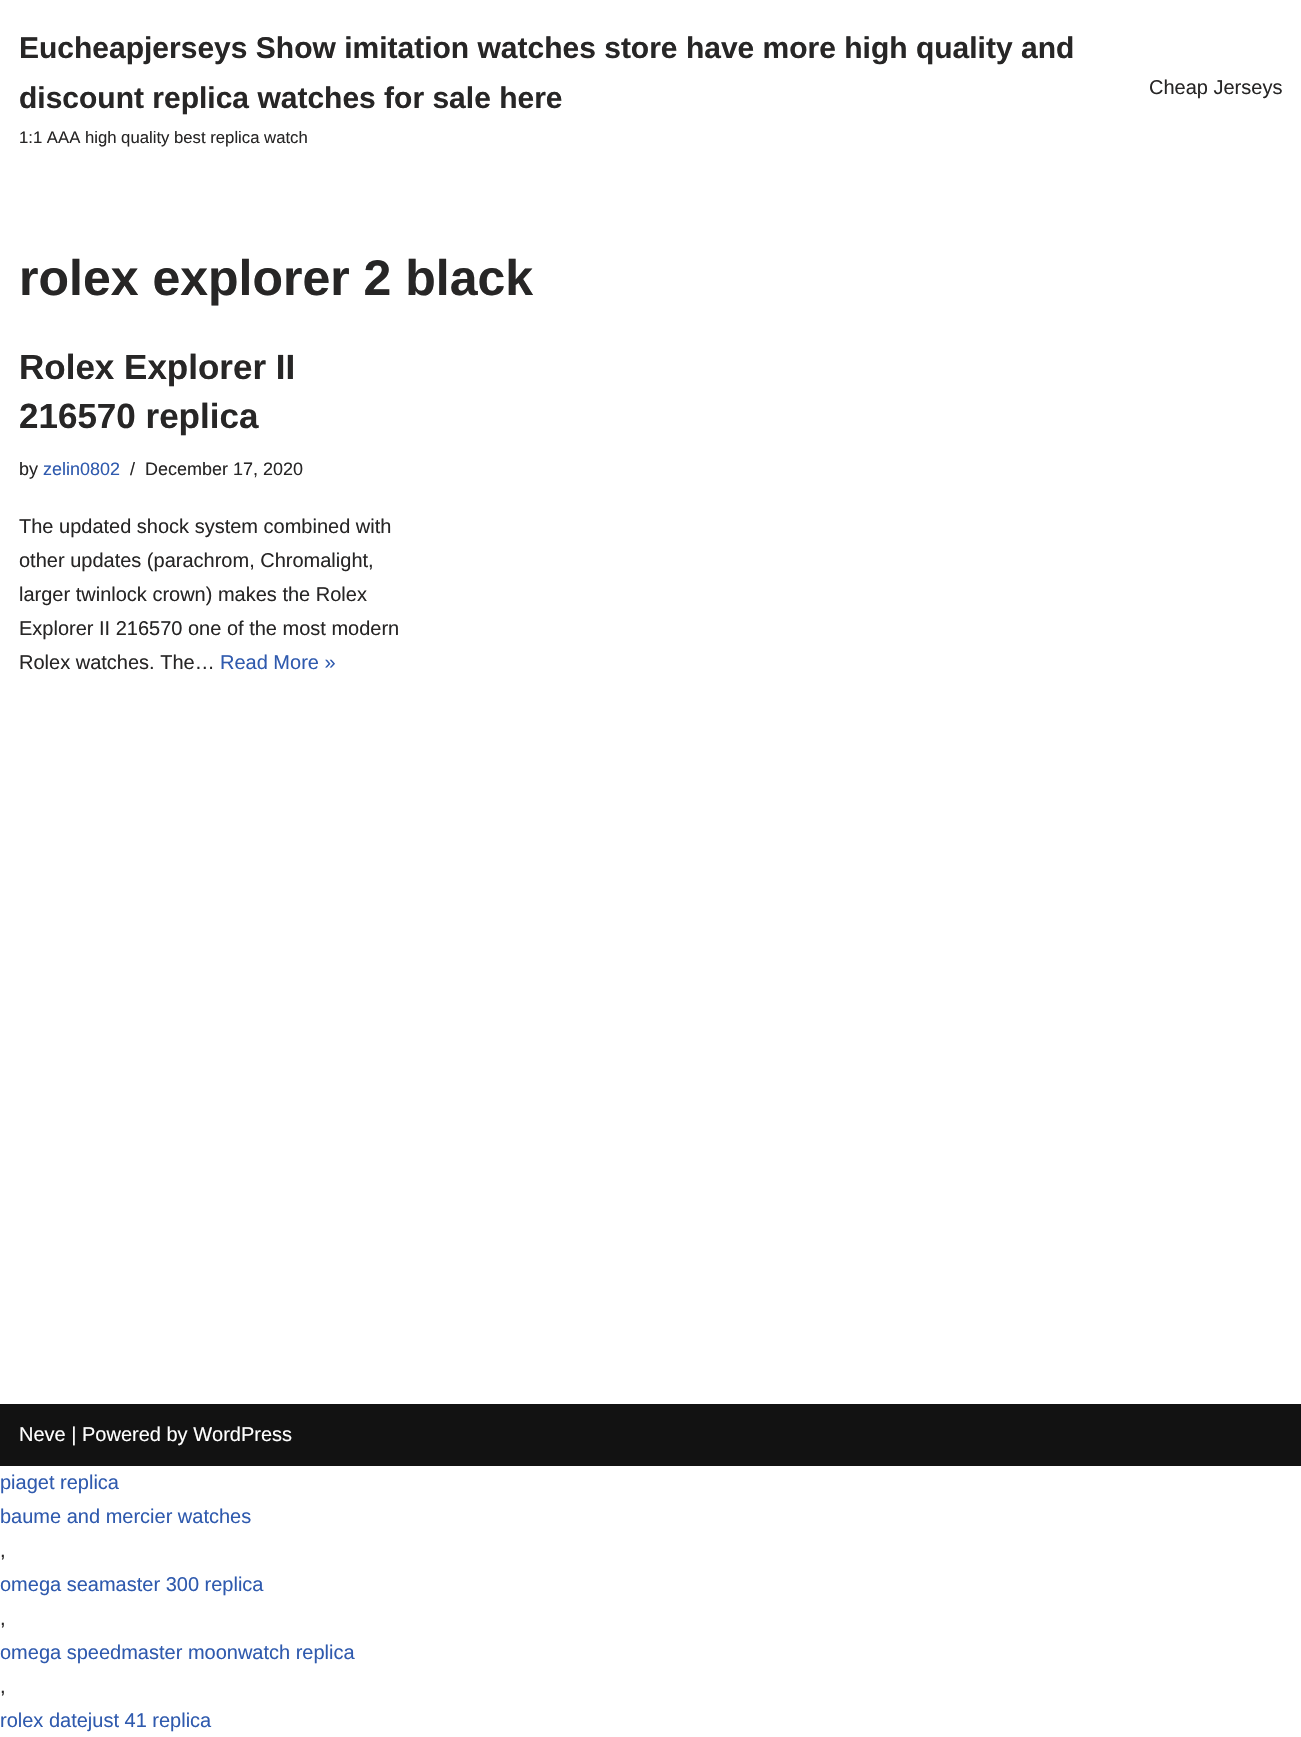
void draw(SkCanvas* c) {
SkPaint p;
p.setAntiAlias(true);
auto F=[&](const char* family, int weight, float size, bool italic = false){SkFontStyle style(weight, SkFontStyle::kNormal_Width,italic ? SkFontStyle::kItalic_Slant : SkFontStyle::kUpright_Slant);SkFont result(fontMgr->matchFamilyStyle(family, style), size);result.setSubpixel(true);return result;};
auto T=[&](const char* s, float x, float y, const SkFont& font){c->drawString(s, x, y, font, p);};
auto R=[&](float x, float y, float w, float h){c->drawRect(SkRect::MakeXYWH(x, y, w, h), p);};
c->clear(0xffffffff);
auto f1 = F("Liberation Sans",700,30);
p.setColor(0xff272626);
T("Eucheapjerseys Show imitation watches store have more high quality and",19,58,f1);
T("discount replica watches for sale here",19,108,f1);
auto f2 = F("Liberation Sans",400,16.7);
T("1:1 AAA high quality best replica watch",19,143,f2);
auto f3 = F("Liberation Sans",400,20);
T("Cheap Jerseys",1149,94,f3);
auto f4 = F("Liberation Sans",700,50);
T("rolex explorer 2 black",19,295,f4);
auto f5 = F("Liberation Sans",700,35);
T("Rolex Explorer II",19,379,f5);
T("216570 replica",19,428,f5);
auto f6 = F("Liberation Sans",400,18);
T("by",19,475,f6);
p.setColor(0xff2f5aae);
T("zelin0802",43,475,f6);
p.setColor(0xff272626);
T("/",130,475,f6);
T("December 17, 2020",145,475,f6);
T("The updated shock system combined with",19,533,f3);
T("other updates (parachrom, Chromalight,",19,567,f3);
T("larger twinlock crown) makes the Rolex",19,601,f3);
T("Explorer II 216570 one of the most modern",19,635,f3);
T("Rolex watches. The…",19,669,f3);
p.setColor(0xff2f5aae);
T("Read More »",220,669,f3);
p.setColor(0xff121212);
R(0,1404,1301,62);
p.setColor(0xffffffff);
T("Neve | Powered by WordPress",19,1441,f3);
p.setColor(0xff2f5aae);
T("piaget replica",0,1489,f3);
T("baume and mercier watches",0,1523,f3);
p.setColor(0xff272626);
T(",",0,1557,f3);
p.setColor(0xff2f5aae);
T("omega seamaster 300 replica",0,1591,f3);
p.setColor(0xff272626);
T(",",0,1625,f3);
p.setColor(0xff2f5aae);
T("omega speedmaster moonwatch replica",0,1659,f3);
p.setColor(0xff272626);
T(",",0,1693,f3);
p.setColor(0xff2f5aae);
T("rolex datejust 41 replica",0,1727,f3);
}
